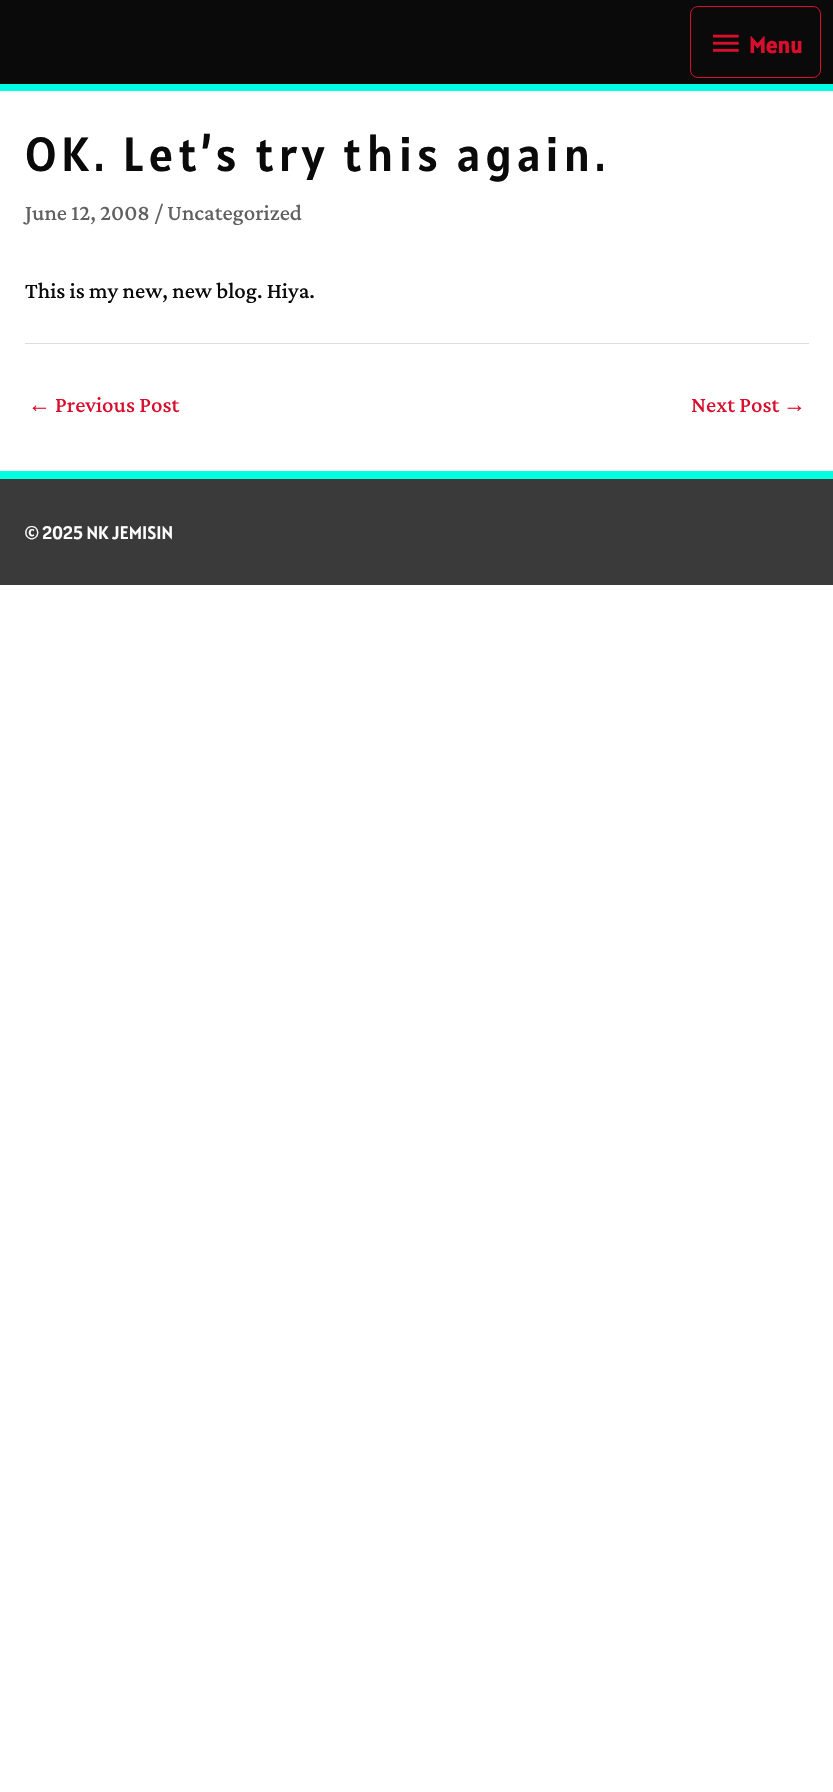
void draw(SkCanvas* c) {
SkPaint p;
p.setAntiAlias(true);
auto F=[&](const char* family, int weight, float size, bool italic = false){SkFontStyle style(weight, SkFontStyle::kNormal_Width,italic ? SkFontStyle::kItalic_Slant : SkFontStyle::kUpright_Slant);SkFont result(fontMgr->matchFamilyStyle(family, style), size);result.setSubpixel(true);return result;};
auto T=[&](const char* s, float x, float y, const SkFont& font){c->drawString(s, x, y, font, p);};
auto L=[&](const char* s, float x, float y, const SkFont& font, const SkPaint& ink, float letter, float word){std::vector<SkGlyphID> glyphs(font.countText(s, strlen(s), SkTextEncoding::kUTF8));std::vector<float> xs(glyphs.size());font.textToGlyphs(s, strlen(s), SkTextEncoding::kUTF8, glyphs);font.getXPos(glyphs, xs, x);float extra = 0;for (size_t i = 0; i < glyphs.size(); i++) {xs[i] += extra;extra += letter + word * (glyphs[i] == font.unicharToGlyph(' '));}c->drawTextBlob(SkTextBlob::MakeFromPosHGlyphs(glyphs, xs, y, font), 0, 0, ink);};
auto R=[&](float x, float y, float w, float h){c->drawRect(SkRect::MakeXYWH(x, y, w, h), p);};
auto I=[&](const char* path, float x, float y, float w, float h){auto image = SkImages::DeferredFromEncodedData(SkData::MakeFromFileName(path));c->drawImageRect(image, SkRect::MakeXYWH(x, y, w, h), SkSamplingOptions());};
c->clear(0xffffffff);
p.setColor(0xff0a0a0a);
R(0,0,833,84);
p.setColor(0xff00ffe0);
R(0,84,833,7);
p.setStroke(true);
p.setStrokeWidth(1);
p.setColor(0xffd80e2c);
c->drawRoundRect(SkRect::MakeXYWH(690.5,6.5,130,71),7.5,7.5,p);
I("1.png",713,34,26,18);
auto f1 = F("Alatsi",700,22.75);
p.setStroke(false);
T("Menu",749,53,f1);
auto f2 = F("Alatsi",400,47.9);
p.setColor(0xff0a0a0a);
L("OK. Let’s try this again.",25,171,f2,p,4.8,0);
auto f3 = F("Crimson Pro",500,22.75);
p.setColor(0xff606060);
T("June 12, 2008 / Uncategorized",25,220,f3);
p.setColor(0xff0a0a0a);
T("This is my new, new blog. Hiya.",25,298,f3);
p.setColor(0xffdddddd);
R(25,343,784,1);
auto f4 = F("Liberation Serif",400,22.75);
p.setColor(0xffd80e2c);
T("←",28,412,f4);
T("Previous Post",55,412,f3);
T("Next Post",691,412,f3);
T("→",783,412,f4);
p.setColor(0xff00ffe0);
R(0,471,833,8);
p.setColor(0xff3a3a3a);
R(0,479,833,106);
auto f5 = F("Alatsi",400,18.25);
p.setColor(0xffffffff);
T("© 2025 NK JEMISIN",25,539,f5);
}
